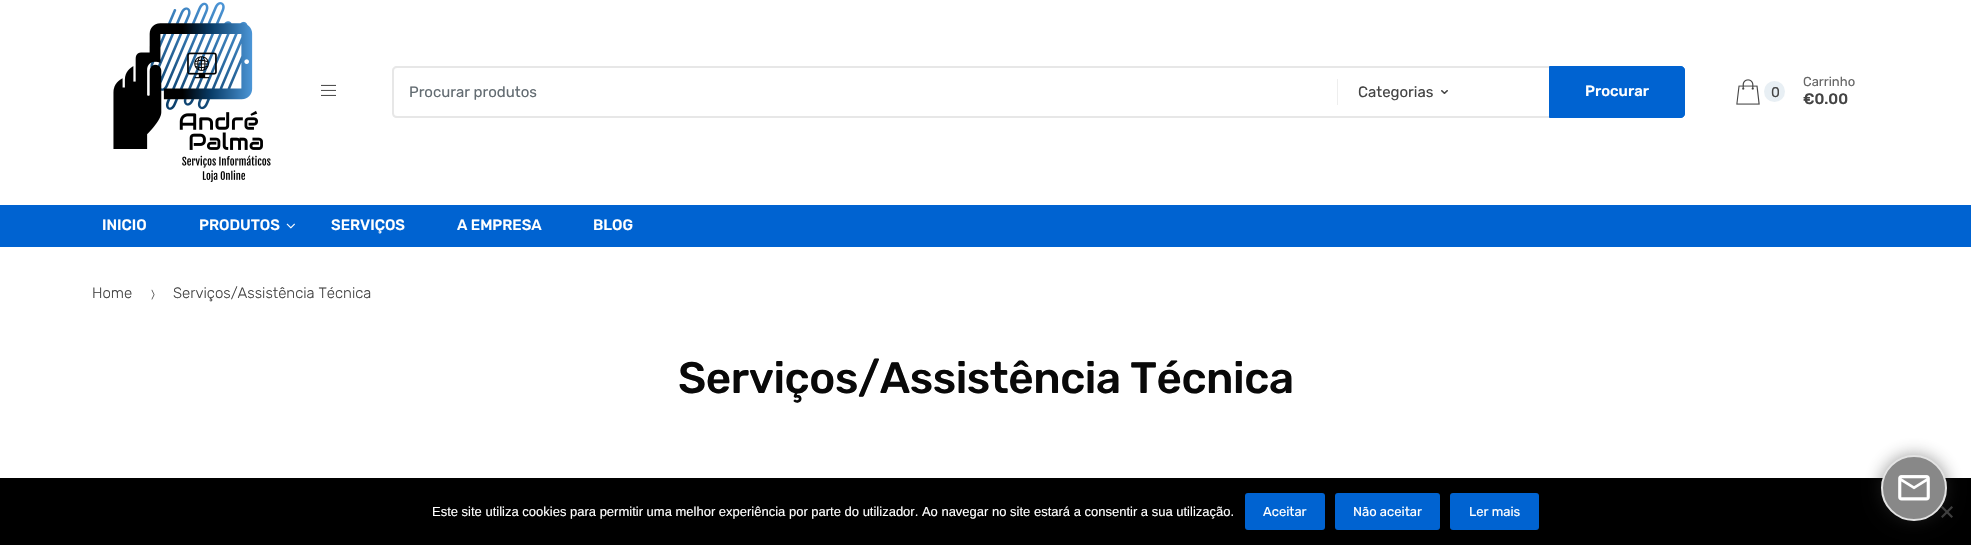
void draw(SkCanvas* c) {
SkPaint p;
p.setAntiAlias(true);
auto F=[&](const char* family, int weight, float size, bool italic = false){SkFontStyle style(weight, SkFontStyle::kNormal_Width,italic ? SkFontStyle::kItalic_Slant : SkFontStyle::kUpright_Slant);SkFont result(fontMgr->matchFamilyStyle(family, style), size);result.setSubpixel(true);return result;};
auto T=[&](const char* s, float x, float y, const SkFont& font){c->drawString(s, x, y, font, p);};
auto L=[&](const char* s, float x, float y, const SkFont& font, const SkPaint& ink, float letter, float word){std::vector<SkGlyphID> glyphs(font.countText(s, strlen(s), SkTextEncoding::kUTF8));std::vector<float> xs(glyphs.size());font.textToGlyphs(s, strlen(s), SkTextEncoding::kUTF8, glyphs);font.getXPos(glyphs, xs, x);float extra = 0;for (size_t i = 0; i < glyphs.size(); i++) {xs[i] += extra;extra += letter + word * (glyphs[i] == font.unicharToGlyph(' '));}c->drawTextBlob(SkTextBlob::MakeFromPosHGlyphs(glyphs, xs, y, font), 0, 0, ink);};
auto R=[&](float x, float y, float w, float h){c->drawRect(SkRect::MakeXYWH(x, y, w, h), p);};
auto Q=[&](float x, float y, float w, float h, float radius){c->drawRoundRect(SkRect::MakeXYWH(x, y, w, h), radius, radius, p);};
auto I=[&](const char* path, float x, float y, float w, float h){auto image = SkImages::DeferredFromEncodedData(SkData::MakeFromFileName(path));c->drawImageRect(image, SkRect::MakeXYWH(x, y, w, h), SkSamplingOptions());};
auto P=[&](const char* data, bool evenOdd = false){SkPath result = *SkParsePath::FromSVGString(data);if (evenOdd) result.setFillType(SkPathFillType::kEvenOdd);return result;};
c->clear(0xffffffff);
I("1.png",113,2,158,180);
I("2.png",321,84,15,12);
p.setColor(0xffe7e7e7);
c->drawPath(P("M397 66h928v52h-928c-3 0-5-2-5-5v-42c0-3 2-5 5-5zm0 2h928v48h-928c-2 0-3-1-3-3v-42c0-2 1-3 3-3z",true),p);
auto f1 = F("Rubik",400,15);
p.setColor(0xff636c72);
T("Procurar produtos",409,97,f1);
p.setColor(0xffe7e7e7);
R(1325,66,225,2);
R(1325,116,225,2);
I("3.png",1441,90,7,4);
p.setColor(0xffeeeeee);
R(1337,79,1,26);
p.setColor(0xff444444);
T("Categorias",1358,97,f1);
p.setColor(0xff0063d1);
c->drawPath(P("M1549.5 66.5h131.5c2 0 3.5 1.5 3.5 3.5v44c0 2-1.5 3.5-3.5 3.5h-131.5z"),p);
p.setStroke(true);
p.setStrokeWidth(1);
c->drawPath(P("M1549.5 66.5h131.5c2 0 3.5 1.5 3.5 3.5v44c0 2-1.5 3.5-3.5 3.5h-131.5z"),p);
auto f2 = F("Rubik",500,15);
p.setStroke(false);
p.setColor(0xffffffff);
T("Procurar",1585,96,f2);
I("4.png",1736,79,24,26);
p.setColor(0xffe8eff4);
c->drawCircle(1774.5,91.5,10.5,p);
auto f3 = F("Rubik",400,14);
p.setColor(0xff444444);
L("0",1771,97,f3,p,-1,0);
auto f4 = F("Rubik",400,13);
p.setColor(0xff676767);
T("Carrinho",1803,86,f4);
p.setColor(0xff444444);
T("€0.00",1803,104,f2);
p.setColor(0xff0063d1);
R(0,205,1971,42);
p.setColor(0xffffffff);
T("INICIO",102,230,f2);
T("PRODUTOS",199,230,f2);
I("5.png",286,223,9,6);
T("SERVIÇOS",331,230,f2);
T("A EMPRESA",457,230,f2);
T("BLOG",593,230,f2);
auto f5 = F("Rubik",300,15);
p.setColor(0xff444444);
T("Home",92,298,f5);
I("6.png",151,289,4,11);
T("Serviços/Assistência Técnica",173,298,f5);
auto f6 = F("Rubik",500,44);
p.setColor(0xff090909);
L("Serviços/Assistência Técnica",678,393,f6,p,-.45,0);
p.setColor(0xff000000);
R(0,478,1971,67);
auto f7 = F("Liberation Sans",400,13);
p.setColor(0xffffffff);
T("Este site utiliza cookies para permitir uma melhor experiência por parte do utilizador. Ao navegar no site estará a consentir a sua utilização.",432,516,f7);
p.setColor(0xff0063d1);
Q(1245,493,80,37,3);
p.setColor(0xffffffff);
T("Aceitar",1263,516,f4);
p.setColor(0xff0063d1);
Q(1335,493,105,37,3);
p.setColor(0xffffffff);
T("Não aceitar",1353,516,f4);
p.setColor(0xff0063d1);
Q(1450,493,89,37,3);
p.setColor(0xffffffff);
T("Ler mais",1469,516,f4);
p.setColor(0xff404040);
c->drawPath(P("M1951.5 506l1.5 1.5l-10.5 10.5l-1.5-1.5z"),p);
c->drawPath(P("M1941 507.5l1.5-1.5l10.5 10.5l-1.5 1.5z"),p);
p.setColor(0x80323232);
p.setMaskFilter(SkMaskFilter::MakeBlur(kNormal_SkBlurStyle, 8.5));
c->drawRoundRect(SkRect::MakeXYWH(1881,455,66,66),33,33,p);
p.setMaskFilter(nullptr);
p.setColor(0xff888888);
c->drawCircle(1914,488,32,p);
p.setStroke(true);
p.setStrokeWidth(2);
p.setColor(0xffe3e3e3);
c->drawCircle(1914,488,32,p);
I("7.png",1898,475,32,26);
}
